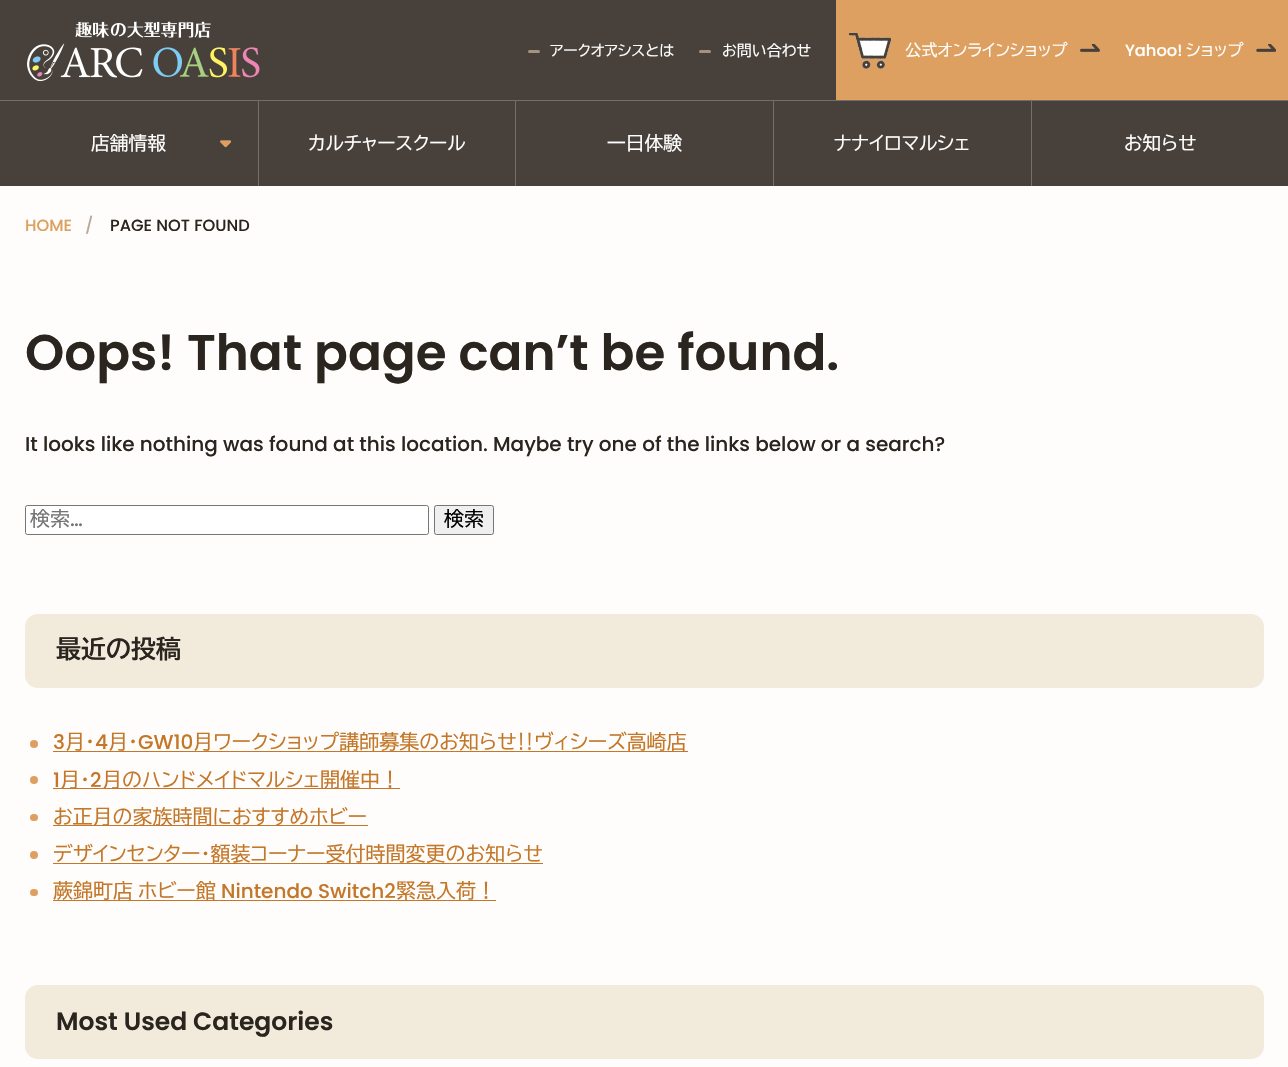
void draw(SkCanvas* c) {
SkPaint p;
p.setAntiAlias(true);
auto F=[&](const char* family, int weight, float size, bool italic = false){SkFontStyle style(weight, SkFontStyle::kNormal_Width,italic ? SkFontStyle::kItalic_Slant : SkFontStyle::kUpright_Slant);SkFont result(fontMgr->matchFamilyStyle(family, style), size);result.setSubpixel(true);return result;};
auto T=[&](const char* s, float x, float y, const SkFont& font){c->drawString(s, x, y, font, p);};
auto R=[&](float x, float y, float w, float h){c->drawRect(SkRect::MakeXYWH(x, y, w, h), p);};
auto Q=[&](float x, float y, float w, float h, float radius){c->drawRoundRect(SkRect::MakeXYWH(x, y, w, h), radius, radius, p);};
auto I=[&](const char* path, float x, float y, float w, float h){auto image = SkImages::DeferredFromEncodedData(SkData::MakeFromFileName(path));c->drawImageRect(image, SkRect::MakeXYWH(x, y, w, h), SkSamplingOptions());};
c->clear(0xfffefdfb);
p.setColor(0xff48413b);
R(0,0,1288,186);
p.setColor(0xff756d67);
R(0,100,1288,1);
I("1.png",27,21,233,61);
p.setColor(0xffa59380);
Q(528,50,12,3,1.5);
auto f1 = F("BIZ UDPGothic",400,15);
p.setColor(0xffffffff);
T("アークオアシスとは",550,56,f1);
p.setColor(0xffa59380);
Q(699,50,12,3,1.5);
p.setColor(0xffffffff);
T("お問い合わせ",722,56,f1);
p.setColor(0xffdea061);
R(836,0,452,100);
I("2.png",849,33,42,36);
auto f2 = F("BIZ UDPGothic",400,16.25);
p.setColor(0xffffffff);
T("公式オンラインショップ",905,56,f2);
I("3.png",1080,44,20,8);
auto f3 = F("Poppins",500,16.25);
T("Yahoo!",1125,56,f3);
T("ショップ",1186,56,f2);
I("4.png",1256,44,20,8);
auto f4 = F("BIZ UDPGothic",400,18.75);
T("店舗情報",91,150,f4);
I("5.png",220,140,11,8);
p.setColor(0xff756d67);
R(258,101,1,85);
p.setColor(0xffffffff);
T("カルチャースクール",308,150,f4);
p.setColor(0xff756d67);
R(515,101,1,85);
p.setColor(0xffffffff);
T("一日体験",607,150,f4);
p.setColor(0xff756d67);
R(773,101,1,85);
p.setColor(0xffffffff);
T("ナナイロマルシェ",834,150,f4);
p.setColor(0xff756d67);
R(1031,101,1,85);
p.setColor(0xffffffff);
T("お知らせ",1124,150,f4);
p.setColor(0xffdea061);
T("HOME",25,231,f3);
p.setColor(0xffb9a99b);
T("/",85,231,f3);
p.setColor(0xff2b2520);
T("PAGE NOT FOUND",110,231,f3);
auto f5 = F("Poppins",600,50);
T("Oops! That page can’t be found.",25,370,f5);
auto f6 = F("Poppins",500,20);
T("It looks like nothing was found at this location. Maybe try one of the links below or a search?",25,451,f6);
p.setColor(0xffffffff);
c->drawRoundRect(SkRect::MakeXYWH(25.5,505.5,403,29),2,2,p);
p.setStroke(true);
p.setStrokeWidth(1);
p.setColor(0xff767676);
c->drawRoundRect(SkRect::MakeXYWH(25.5,505.5,403,29),2,2,p);
auto f7 = F("BIZ UDPGothic",400,20);
p.setStroke(false);
p.setColor(0xff757575);
T("検索",30,526,f7);
T("…",70,526,f6);
p.setColor(0xffefefef);
c->drawRoundRect(SkRect::MakeXYWH(434.5,505.5,59,29),2,2,p);
p.setStroke(true);
p.setColor(0xff767676);
c->drawRoundRect(SkRect::MakeXYWH(434.5,505.5,59,29),2,2,p);
p.setStroke(false);
p.setColor(0xff000000);
T("検索",444,526,f7);
p.setColor(0xfff2ebdc);
Q(25,614,1239,74,13);
auto f8 = F("BIZ UDPGothic",700,25);
p.setColor(0xff2b2520);
T("最近の投稿",56,658,f8);
p.setColor(0xffdea061);
c->drawCircle(34,744,4,p);
p.setColor(0xffc47729);
T("3",53,749,f6);
R(53,751,635,1);
T("月・",65,749,f7);
T("4",95,749,f6);
T("月・",108,749,f7);
T("GW10",138,749,f6);
T("月ワークショップ講師募集のお知らせ‼ヴィシーズ高崎店",193,749,f7);
p.setColor(0xffdea061);
c->drawCircle(34,780,4,p);
p.setColor(0xffc47729);
T("1",53,787,f6);
R(53,788,347,1);
T("月・",60,787,f7);
T("2",90,787,f6);
T("月のハンドメイドマルシェ開催中！",102,787,f7);
p.setColor(0xffdea061);
Q(30,814,8,7,3.5);
p.setColor(0xffc47729);
R(53,825,315,1);
T("お正月の家族時間におすすめホビー",53,824,f7);
p.setColor(0xffdea061);
c->drawCircle(34,855,4,p);
p.setColor(0xffc47729);
T("デザインセンター・額装コーナー受付時間変更のお知らせ",53,861,f7);
R(53,863,490,1);
p.setColor(0xffdea061);
Q(30,889,8,7,3.5);
p.setColor(0xffc47729);
T("蕨錦町店",53,898,f7);
T("ホビー館",138,898,f7);
T("Nintendo Switch2",221,898,f6);
R(53,900,443,1);
T("緊急入荷！",396,898,f7);
p.setColor(0xfff2ebdc);
Q(25,985,1239,74,13);
auto f9 = F("Poppins",600,25);
p.setColor(0xff2b2520);
T("Most Used Categories",56,1030,f9);
}
